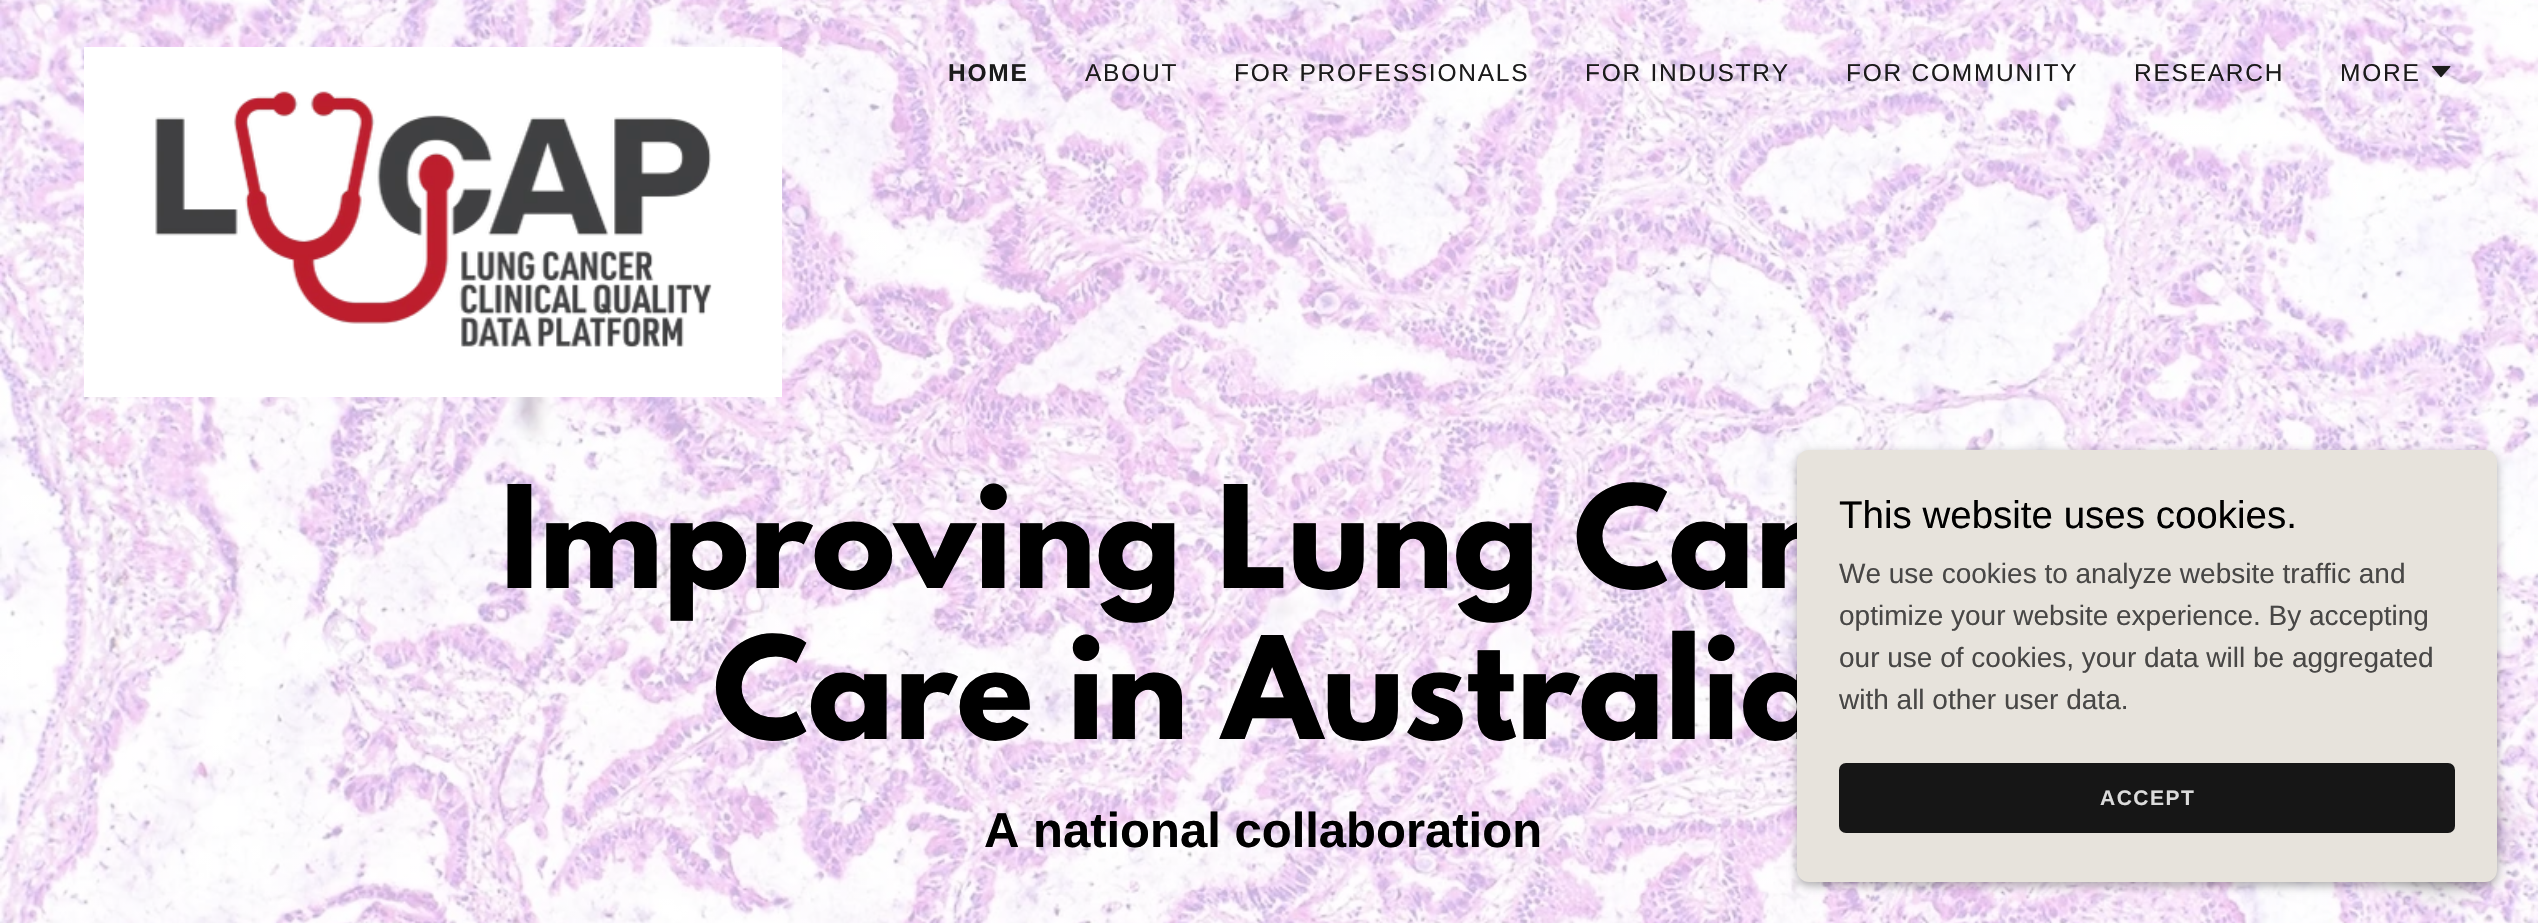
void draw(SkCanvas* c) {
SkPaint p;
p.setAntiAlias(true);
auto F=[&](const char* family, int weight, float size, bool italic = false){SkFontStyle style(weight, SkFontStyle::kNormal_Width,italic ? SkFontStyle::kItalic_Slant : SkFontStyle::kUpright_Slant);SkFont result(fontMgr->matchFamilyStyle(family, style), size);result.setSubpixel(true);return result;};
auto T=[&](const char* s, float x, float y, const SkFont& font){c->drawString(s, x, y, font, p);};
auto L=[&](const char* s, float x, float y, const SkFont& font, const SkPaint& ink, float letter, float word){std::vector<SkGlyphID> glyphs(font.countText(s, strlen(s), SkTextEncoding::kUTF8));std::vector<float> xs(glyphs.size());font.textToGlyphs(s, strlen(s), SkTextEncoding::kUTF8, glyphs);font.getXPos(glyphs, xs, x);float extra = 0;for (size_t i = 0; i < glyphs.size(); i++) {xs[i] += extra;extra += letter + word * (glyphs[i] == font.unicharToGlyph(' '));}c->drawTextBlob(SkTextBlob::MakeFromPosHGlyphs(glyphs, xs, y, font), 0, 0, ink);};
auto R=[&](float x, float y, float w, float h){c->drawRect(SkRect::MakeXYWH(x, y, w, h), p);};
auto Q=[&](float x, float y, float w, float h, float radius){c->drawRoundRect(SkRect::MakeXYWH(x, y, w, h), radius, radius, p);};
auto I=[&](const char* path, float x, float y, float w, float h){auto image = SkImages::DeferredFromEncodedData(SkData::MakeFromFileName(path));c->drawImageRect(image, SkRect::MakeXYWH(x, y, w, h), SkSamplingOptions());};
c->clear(0xffffffff);
I("1.png",0,0,2538,923);
p.setColor(0xffffffff);
R(84,47,698,350);
I("2.png",155,91,557,257);
auto f1 = F("Liberation Sans",700,24.5);
p.setColor(0xff1b1b1b);
L("HOME",948,81,f1,p,1.75,0);
auto f2 = F("Liberation Sans",400,24.5);
L("ABOUT",1085,81,f2,p,1.75,0);
L("FOR PROFESSIONALS",1234,81,f2,p,1.75,0);
L("FOR INDUSTRY",1585,81,f2,p,1.75,0);
L("FOR COMMUNITY",1846,81,f2,p,1.75,0);
L("RESEARCH",2134,81,f2,p,1.75,0);
L("MORE",2340,81,f2,p,1.75,0);
I("3.png",2431,65,20,13);
auto f3 = F("League Spartan",700,126);
p.setColor(0xff000000);
T("Improving Lung Can",500,588,f3);
T("Care in Australia",713,739,f3);
auto f4 = F("Liberation Sans",700,49);
T("A national collaboration",984,847,f4);
p.setColor(0x4d000000);
p.setMaskFilter(SkMaskFilter::MakeBlur(kNormal_SkBlurStyle, 5));
c->drawRoundRect(SkRect::MakeXYWH(1797,453,700,433),12,12,p);
p.setMaskFilter(nullptr);
p.setColor(0x40000000);
p.setMaskFilter(SkMaskFilter::MakeBlur(kNormal_SkBlurStyle, 16));
c->drawRoundRect(SkRect::MakeXYWH(2384,774,113,113),56.5,56.5,p);
p.setMaskFilter(nullptr);
p.setColor(0xffe7e3dc);
Q(1797,450,700,432,12);
auto f5 = F("Liberation Sans",400,38.5);
p.setColor(0xff000000);
T("This website uses cookies.",1839,528,f5);
auto f6 = F("Liberation Sans",400,28);
p.setColor(0xff484746);
T("We use cookies to analyze website traffic and",1839,583,f6);
T("optimize your website experience. By accepting",1839,625,f6);
T("our use of cookies, your data will be aggregated",1839,667,f6);
T("with all other user data.",1839,709,f6);
p.setColor(0xff161616);
Q(1839,763,616,70,7);
auto f7 = F("Liberation Sans",700,21);
p.setColor(0xffdbdbdb);
L("ACCEPT",2100,805,f7,p,1.5,0);
}
